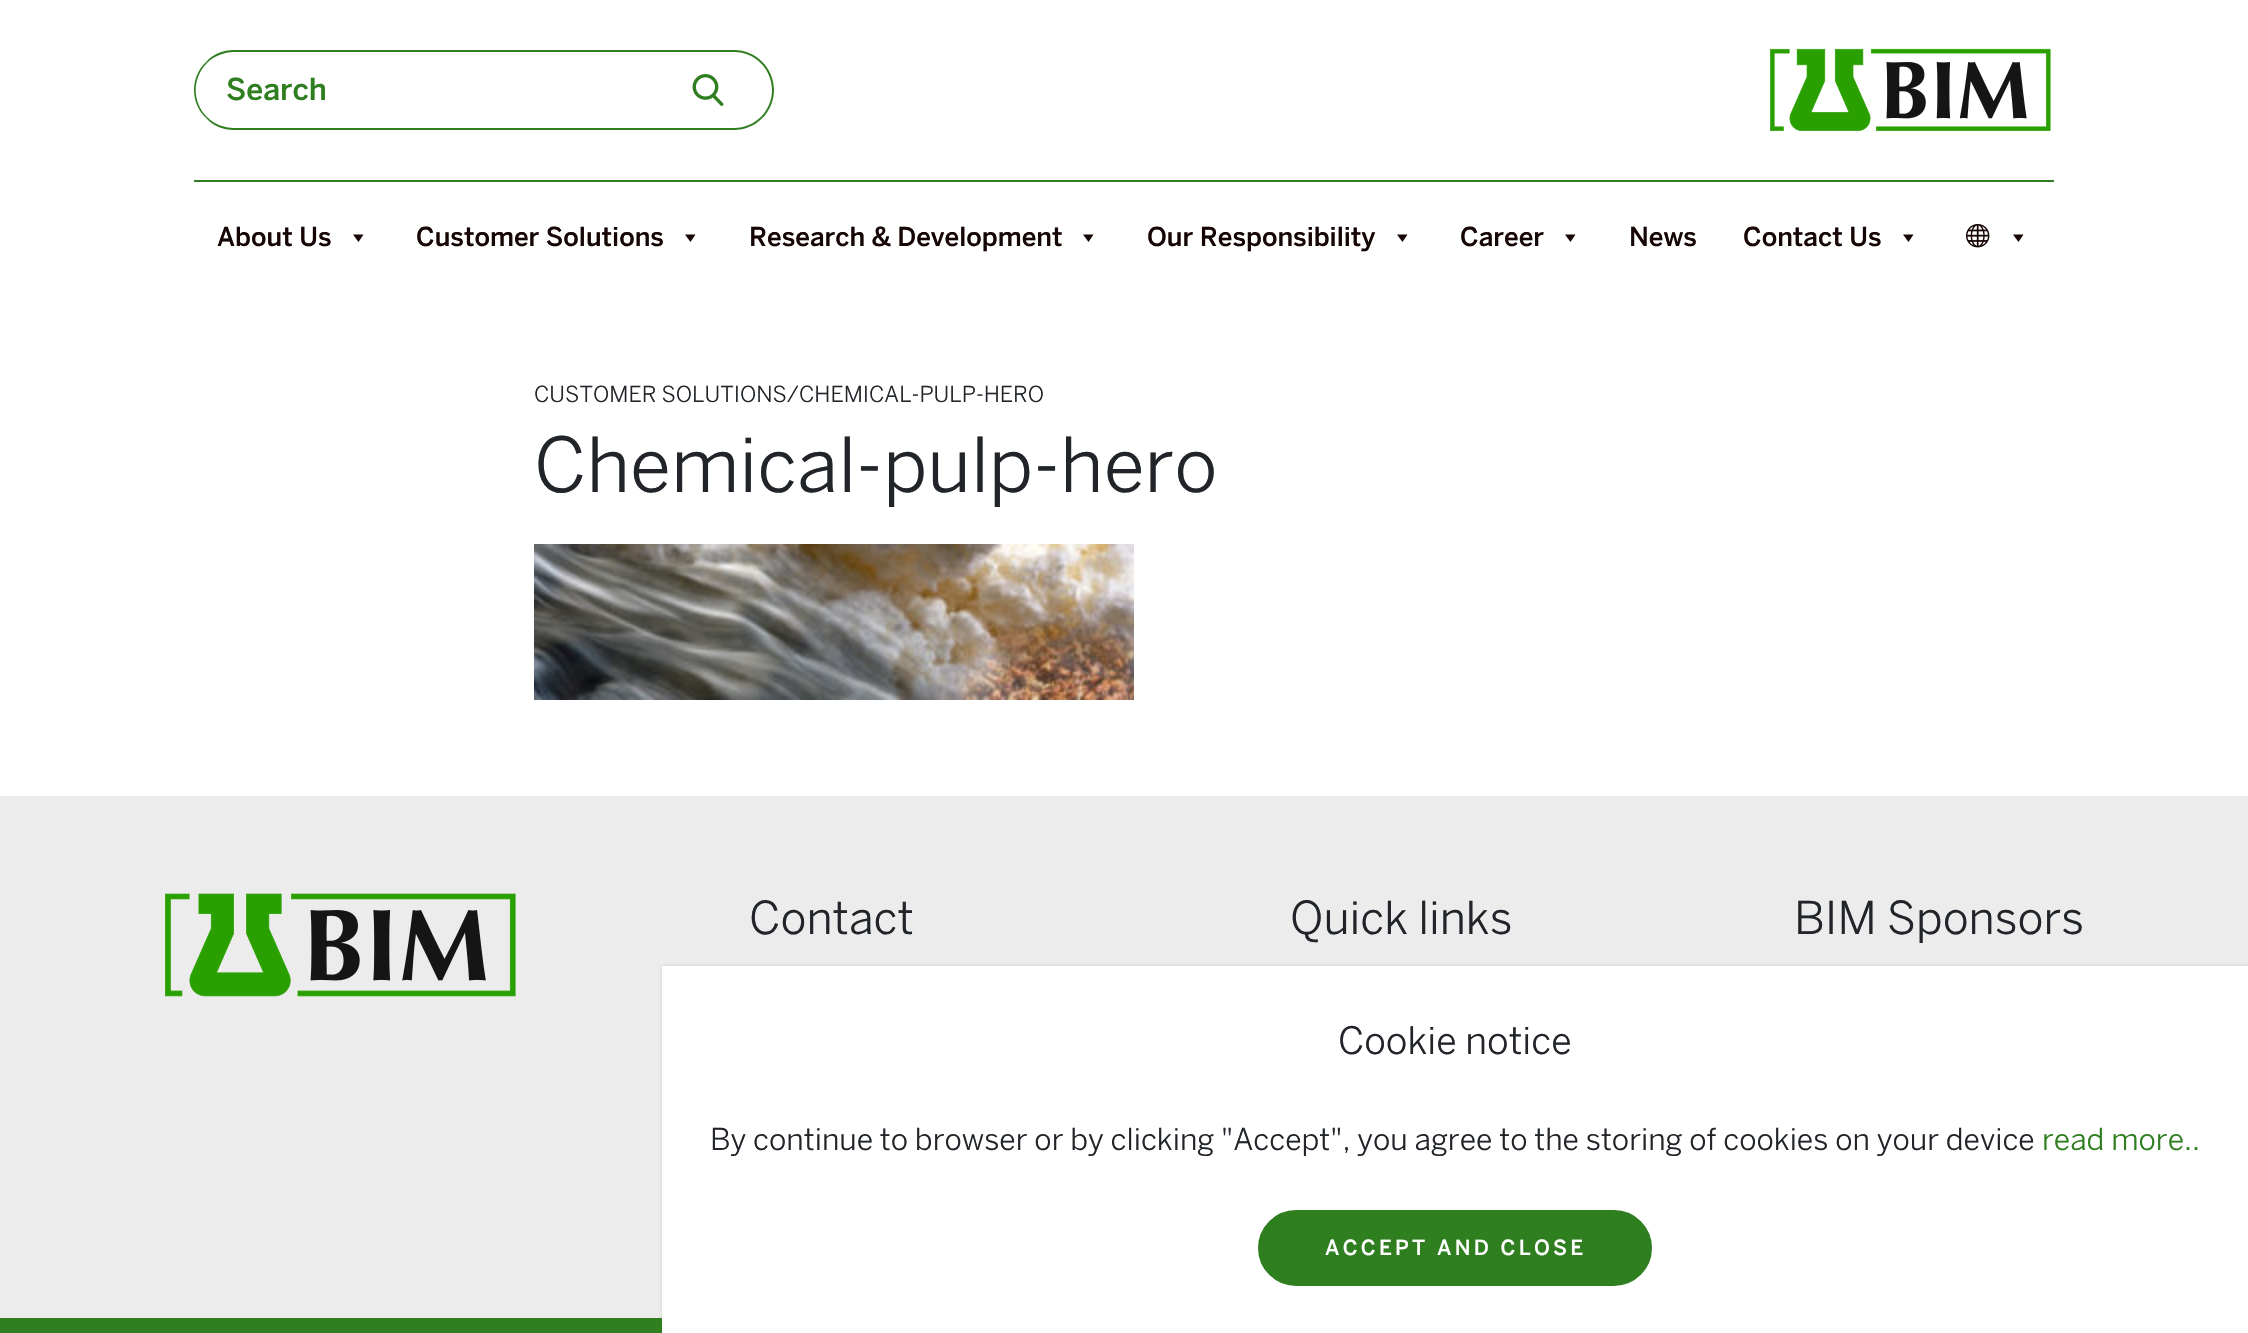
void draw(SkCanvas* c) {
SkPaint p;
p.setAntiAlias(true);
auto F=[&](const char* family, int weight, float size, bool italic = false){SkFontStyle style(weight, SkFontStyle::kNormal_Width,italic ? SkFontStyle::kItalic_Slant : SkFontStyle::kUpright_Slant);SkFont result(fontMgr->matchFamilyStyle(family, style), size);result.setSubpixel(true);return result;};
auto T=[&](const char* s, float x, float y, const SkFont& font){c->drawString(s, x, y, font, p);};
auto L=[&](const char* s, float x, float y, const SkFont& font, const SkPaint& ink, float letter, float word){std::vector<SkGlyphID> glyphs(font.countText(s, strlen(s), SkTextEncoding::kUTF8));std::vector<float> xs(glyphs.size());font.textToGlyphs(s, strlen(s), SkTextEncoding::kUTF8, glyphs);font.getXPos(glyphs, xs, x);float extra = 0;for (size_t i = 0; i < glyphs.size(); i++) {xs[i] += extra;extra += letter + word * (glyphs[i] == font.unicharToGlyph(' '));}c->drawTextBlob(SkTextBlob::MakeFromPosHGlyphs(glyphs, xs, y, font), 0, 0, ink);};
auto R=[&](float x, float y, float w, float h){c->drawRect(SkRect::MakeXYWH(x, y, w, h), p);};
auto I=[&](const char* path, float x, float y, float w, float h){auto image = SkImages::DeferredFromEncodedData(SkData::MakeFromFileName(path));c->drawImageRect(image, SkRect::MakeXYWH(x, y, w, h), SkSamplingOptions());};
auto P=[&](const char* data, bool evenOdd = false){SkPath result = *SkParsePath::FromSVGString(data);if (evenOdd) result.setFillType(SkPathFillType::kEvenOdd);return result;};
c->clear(0xffffffff);
p.setColor(0xff2f7e20);
R(194,180,1860,2);
c->drawPath(P("M234 50c-11 0-21 4-28 12l1 1c7-7 17-11 27-11h410l2-2z"),p);
c->drawPath(P("M646 130l-2-2h-410c-10 0-20-4-27-11l-1 1c7 8 17 12 28 12z"),p);
c->drawPath(P("M206 118c-16-15-16-41 0-56l1 1c-15 15-15 39 0 54z"),p);
auto f1 = F("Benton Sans",500,30);
T("Search",226,100,f1);
I("1.png",692,74,32,32);
c->drawPath(P("M644 50h90c22 0 40 18 40 40c0 22-18 40-40 40h-90zm0 2h90c21 0 38 17 38 38c0 21-17 38-38 38h-90z",true),p);
I("2.png",1770,48,281,83);
auto f2 = F("Benton Sans",500,26);
p.setColor(0xff150504);
T("About Us",217,246,f2);
c->drawPath(P("M363.5 234.5l-5 7.5l-5.5-7.5z"),p);
T("Customer Solutions",416,246,f2);
c->drawPath(P("M695.5 234.5l-5 7.5l-5.5-7.5z"),p);
T("Research & Development",749,246,f2);
c->drawPath(P("M1093.5 234.5l-5 7.5l-5.5-7.5z"),p);
T("Our Responsibility",1147,246,f2);
c->drawPath(P("M1407.5 234.5l-5 7.5l-5.5-7.5z"),p);
T("Career",1460,246,f2);
c->drawPath(P("M1575.5 234.5l-5 7.5l-5.5-7.5z"),p);
T("News",1629,246,f2);
T("Contact Us",1743,246,f2);
c->drawPath(P("M1913.5 234.5l-5 7.5l-5.5-7.5z"),p);
I("3.png",1966,224,24,24);
c->drawPath(P("M2023.5 234.5l-5 7.5l-5.5-7.5z"),p);
auto f3 = F("BentonSans",400,22);
p.setColor(0xff212529);
T("CUSTOMER SOLUTIONS/CHEMICAL-PULP-HERO",534,402,f3);
auto f4 = F("BentonSans",400,75);
T("Chemical-pulp-hero",534,492,f4);
I("4.png",534,544,600,156);
p.setColor(0xffececec);
R(0,796,2248,522);
I("5.png",165,893,351,104);
auto f5 = F("BentonSans",400,45);
p.setColor(0xff212529);
T("Contact",749,934,f5);
T("Quick links",1290,934,f5);
T("BIM Sponsors",1794,934,f5);
p.setColor(0xff2f7e20);
R(0,1318,662,15);
p.setColor(0x332f7e20);
p.setMaskFilter(SkMaskFilter::MakeBlur(kNormal_SkBlurStyle, 2));
c->drawRect(SkRect::MakeXYWH(662,966,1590,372),p);
p.setMaskFilter(nullptr);
p.setColor(0xffffffff);
R(662,966,1586,367);
auto f6 = F("BentonSans",400,37.5);
p.setColor(0xff212529);
T("Cookie notice",1338,1054,f6);
auto f7 = F("BentonSans",400,30);
T("By continue to browser or by clicking \"Accept\", you agree to the storing of cookies on your device",710,1150,f7);
p.setColor(0xff2f7e20);
T("read more..",2042,1150,f7);
c->drawRoundRect(SkRect::MakeXYWH(1259,1211,392,74),37,37,p);
p.setStroke(true);
p.setStrokeWidth(2);
c->drawRoundRect(SkRect::MakeXYWH(1259,1211,392,74),37,37,p);
auto f8 = F("Benton Sans",500,20.75);
p.setStroke(false);
p.setColor(0xffffffff);
L("ACCEPT AND CLOSE",1325,1255,f8,p,3.25,0);
}
